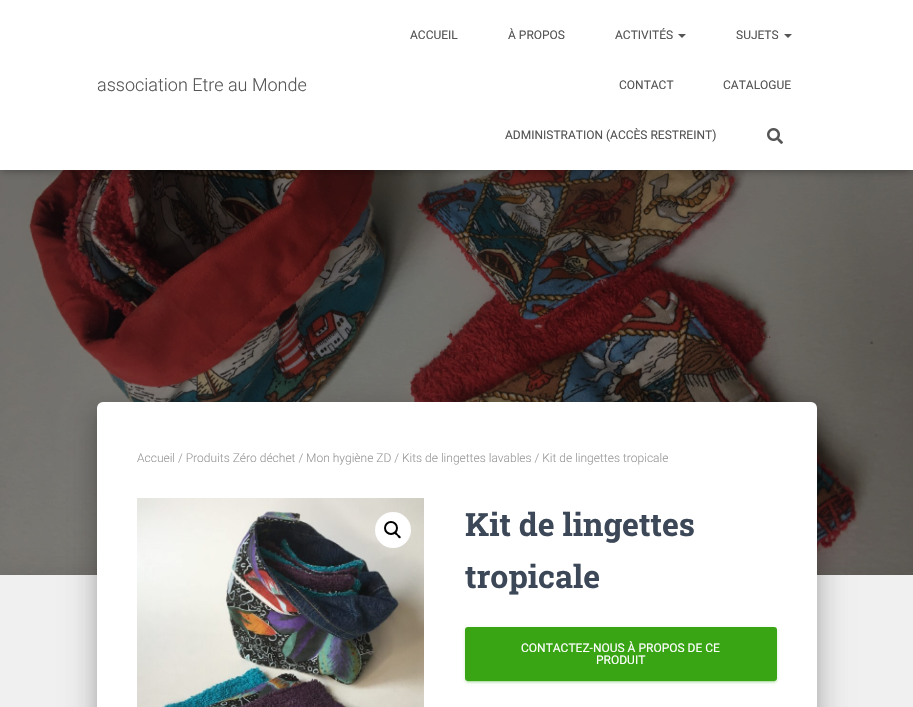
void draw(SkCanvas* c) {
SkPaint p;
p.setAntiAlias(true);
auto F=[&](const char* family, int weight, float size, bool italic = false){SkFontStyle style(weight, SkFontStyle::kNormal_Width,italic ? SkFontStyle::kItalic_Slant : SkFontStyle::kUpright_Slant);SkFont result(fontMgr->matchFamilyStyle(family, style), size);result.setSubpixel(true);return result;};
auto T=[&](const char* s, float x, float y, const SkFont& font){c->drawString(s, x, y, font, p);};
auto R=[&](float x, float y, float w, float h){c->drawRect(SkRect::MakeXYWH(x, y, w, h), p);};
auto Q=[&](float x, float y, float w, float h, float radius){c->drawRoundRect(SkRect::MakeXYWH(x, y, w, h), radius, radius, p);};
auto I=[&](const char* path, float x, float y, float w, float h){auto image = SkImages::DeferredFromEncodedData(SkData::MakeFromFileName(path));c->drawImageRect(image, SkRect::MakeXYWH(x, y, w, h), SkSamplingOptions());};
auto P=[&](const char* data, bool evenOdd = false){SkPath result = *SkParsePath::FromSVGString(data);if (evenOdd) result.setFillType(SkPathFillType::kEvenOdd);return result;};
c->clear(0xffffffff);
I("2.png",0,170,913,405);
p.setColor(0x1a000000);
p.setMaskFilter(SkMaskFilter::MakeBlur(kNormal_SkBlurStyle, 2.5));
c->drawRect(SkRect::MakeXYWH(2,6,909,166),p);
p.setMaskFilter(nullptr);
p.setColor(0x1f000000);
p.setMaskFilter(SkMaskFilter::MakeBlur(kNormal_SkBlurStyle, 5));
c->drawRect(SkRect::MakeXYWH(0,1,913,170),p);
p.setMaskFilter(nullptr);
p.setColor(0x6b000000);
p.setMaskFilter(SkMaskFilter::MakeBlur(kNormal_SkBlurStyle, 5));
c->drawRect(SkRect::MakeXYWH(6,7,901,158),p);
p.setMaskFilter(nullptr);
p.setColor(0xffffffff);
R(0,0,913,170);
auto f1 = F("Roboto",300,18);
p.setColor(0xff555555);
T("association Etre au Monde",97,91,f1);
auto f2 = F("Roboto",400,12);
T("ACCUEIL",410,39,f2);
T("À PROPOS",508,39,f2);
T("ACTIVITÉS",615,39,f2);
c->drawPath(P("M678 34h8l-4 4z"),p);
T("SUJETS",736,39,f2);
c->drawPath(P("M784 34h8l-4 4z"),p);
T("CONTACT",619,89,f2);
T("CATALOGUE",723,89,f2);
T("ADMINISTRATION (ACCÈS RESTREINT)",505,139,f2);
I("1.png",767,128,16,16);
auto f3 = F("Roboto",400,14);
p.setColor(0xff533a38);
T("…",762,338,f3);
p.setColor(0x1f000000);
p.setMaskFilter(SkMaskFilter::MakeBlur(kNormal_SkBlurStyle, 15));
c->drawRect(SkRect::MakeXYWH(-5,576,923,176),p);
p.setMaskFilter(nullptr);
p.setColor(0xfff0f0f0);
R(0,575,913,132);
p.setColor(0x33000000);
p.setMaskFilter(SkMaskFilter::MakeBlur(kNormal_SkBlurStyle, 5));
c->drawRoundRect(SkRect::MakeXYWH(102,415,710,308),1,1,p);
p.setMaskFilter(nullptr);
p.setColor(0x1f000000);
p.setMaskFilter(SkMaskFilter::MakeBlur(kNormal_SkBlurStyle, 15));
c->drawRoundRect(SkRect::MakeXYWH(92,403,730,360),11,11,p);
p.setMaskFilter(nullptr);
p.setColor(0x24000000);
p.setMaskFilter(SkMaskFilter::MakeBlur(kNormal_SkBlurStyle, 12));
c->drawRoundRect(SkRect::MakeXYWH(95,416,724,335),8,8,p);
p.setMaskFilter(nullptr);
p.setColor(0xffffffff);
Q(97,402,720,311,6);
auto f4 = F("Roboto",300,12);
p.setColor(0xff999999);
T("Accueil / Produits Zéro déchet / Mon hygiène ZD / Kits de lingettes lavables / Kit de lingettes tropicale",137,462,f4);
I("3.png",137,498,287,209);
p.setColor(0xffffffff);
c->drawCircle(393,530,18,p);
p.setStroke(true);
p.setStrokeWidth(2);
p.setColor(0xff000000);
c->drawCircle(391,528,6,p);
p.setStroke(false);
c->drawPath(P("M394.5 532c1.5-1 3 1.5 3.5 2.5c1 .5 3.5 2 2.5 3.5c-1.5 1-3-1.5-3.5-2.5c-1-.5-3.5-2-2.5-3.5z"),p);
auto f5 = F("Roboto Slab",700,32);
p.setColor(0xff3c4858);
T("Kit de lingettes",465,536,f5);
T("tropicale",465,588,f5);
p.setColor(0x1f39a515);
p.setMaskFilter(SkMaskFilter::MakeBlur(kNormal_SkBlurStyle, 2.5));
c->drawRoundRect(SkRect::MakeXYWH(465,628,312,54),3,3,p);
p.setMaskFilter(nullptr);
p.setColor(0x3339a515);
p.setMaskFilter(SkMaskFilter::MakeBlur(kNormal_SkBlurStyle, .5));
c->drawRoundRect(SkRect::MakeXYWH(467,632,308,50),1,1,p);
p.setMaskFilter(nullptr);
p.setColor(0x2439a515);
p.setMaskFilter(SkMaskFilter::MakeBlur(kNormal_SkBlurStyle, 1));
c->drawRoundRect(SkRect::MakeXYWH(465,629,312,54),3,3,p);
p.setMaskFilter(nullptr);
p.setColor(0xff39a515);
Q(465,627,312,54,3);
p.setColor(0xffffffff);
T("CONTACTEZ-NOUS À PROPOS DE CE",521,652,f2);
T("PRODUIT",596,664,f2);
}
